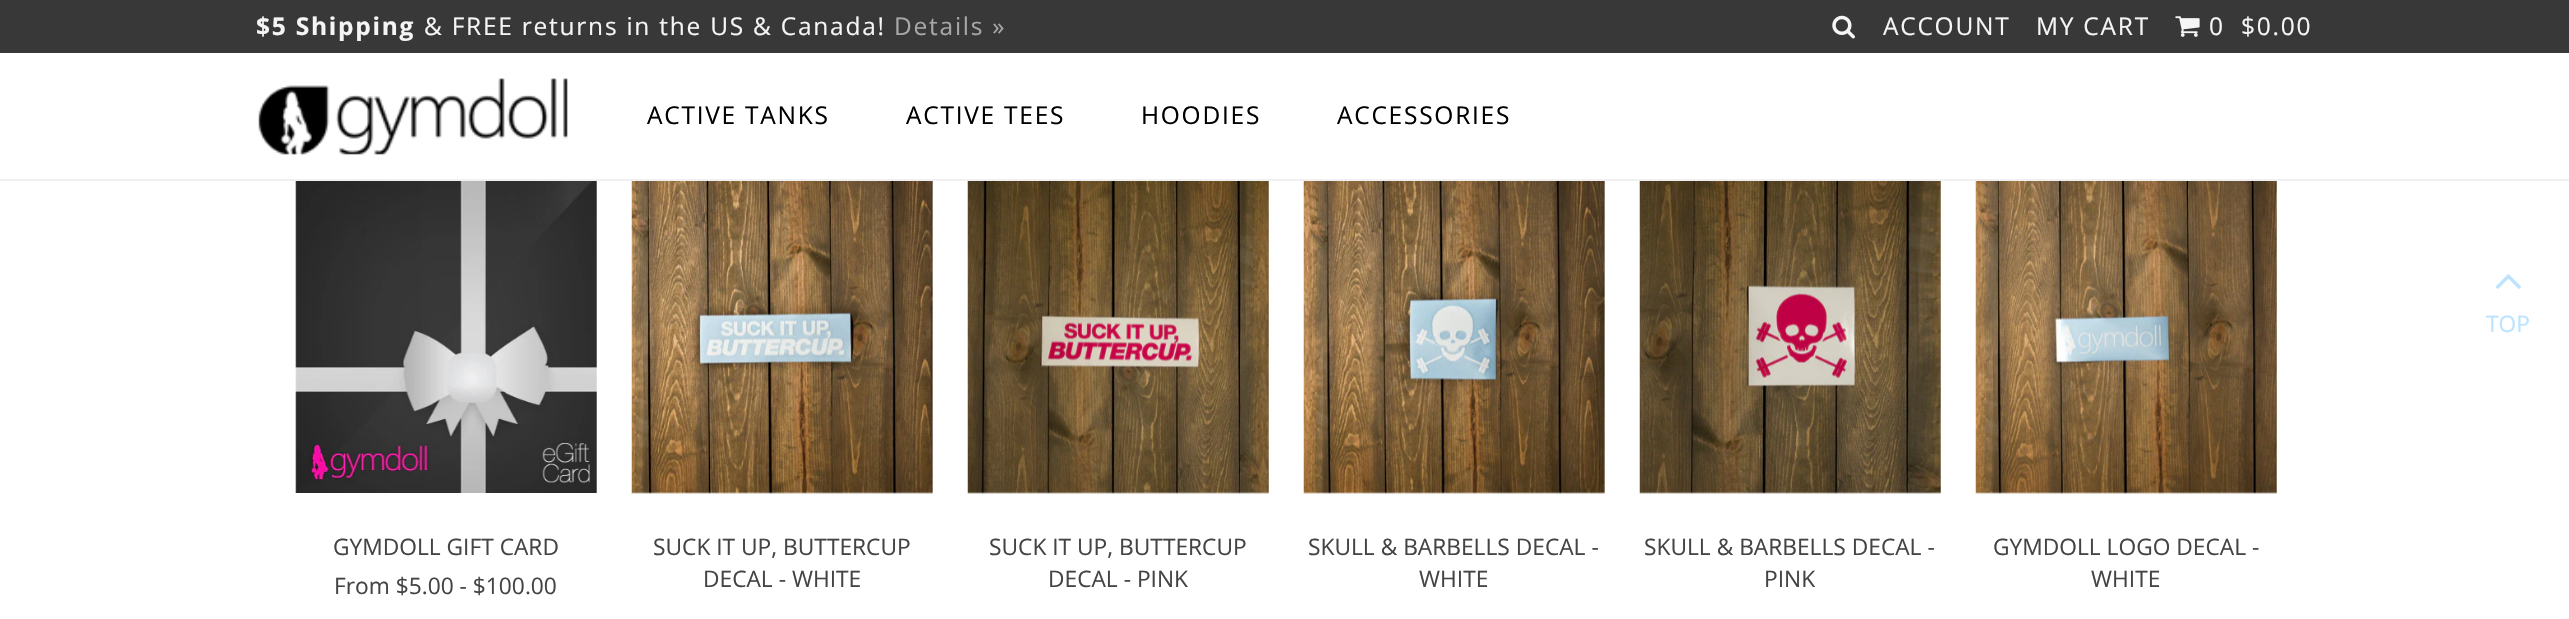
void draw(SkCanvas* c) {
SkPaint p;
p.setAntiAlias(true);
auto F=[&](const char* family, int weight, float size, bool italic = false){SkFontStyle style(weight, SkFontStyle::kNormal_Width,italic ? SkFontStyle::kItalic_Slant : SkFontStyle::kUpright_Slant);SkFont result(fontMgr->matchFamilyStyle(family, style), size);result.setSubpixel(true);return result;};
auto T=[&](const char* s, float x, float y, const SkFont& font){c->drawString(s, x, y, font, p);};
auto L=[&](const char* s, float x, float y, const SkFont& font, const SkPaint& ink, float letter, float word){std::vector<SkGlyphID> glyphs(font.countText(s, strlen(s), SkTextEncoding::kUTF8));std::vector<float> xs(glyphs.size());font.textToGlyphs(s, strlen(s), SkTextEncoding::kUTF8, glyphs);font.getXPos(glyphs, xs, x);float extra = 0;for (size_t i = 0; i < glyphs.size(); i++) {xs[i] += extra;extra += letter + word * (glyphs[i] == font.unicharToGlyph(' '));}c->drawTextBlob(SkTextBlob::MakeFromPosHGlyphs(glyphs, xs, y, font), 0, 0, ink);};
auto R=[&](float x, float y, float w, float h){c->drawRect(SkRect::MakeXYWH(x, y, w, h), p);};
auto I=[&](const char* path, float x, float y, float w, float h){auto image = SkImages::DeferredFromEncodedData(SkData::MakeFromFileName(path));c->drawImageRect(image, SkRect::MakeXYWH(x, y, w, h), SkSamplingOptions());};
c->clear(0xffffffff);
p.setColor(0xfff0f0f0);
R(0,179,2569,2);
p.setColor(0xff383838);
R(0,0,2569,53);
auto f1 = F("Open Sans",700,24.5);
p.setColor(0xfff5f5f5);
L("$5 Shipping",256,35,f1,p,1.75,0);
auto f2 = F("Open Sans",400,24.5);
L("& FREE returns in the US & Canada!",424,35,f2,p,1.75,0);
p.setColor(0xffa7a7a7);
L("Details »",894,35,f2,p,1.75,0);
I("1.png",1832,15,23,24);
p.setColor(0xfff5f5f5);
L("ACCOUNT",1883,35,f2,p,1.75,0);
L("MY CART",2036,35,f2,p,1.75,0);
I("2.png",2175,16,25,21);
L("0",2209,35,f2,p,1.75,0);
L("$0.00",2241,35,f2,p,1.75,0);
I("3.png",258,78,310,77);
p.setColor(0xff000000);
L("ACTIVE TANKS",647,124,f2,p,1.75,0);
L("ACTIVE TEES",906,124,f2,p,1.75,0);
L("HOODIES",1141,124,f2,p,1.75,0);
L("ACCESSORIES",1337,124,f2,p,1.75,0);
I("4.png",295,181,302,312);
auto f3 = F("Open Sans",400,22.75);
p.setColor(0xff444444);
T("GYMDOLL GIFT CARD",333,555,f3);
T("From $5.00 - $100.00",334,594,f3);
I("5.png",631,181,302,313);
T("SUCK IT UP, BUTTERCUP",653,555,f3);
T("DECAL - WHITE",703,587,f3);
I("6.png",967,181,302,313);
T("SUCK IT UP, BUTTERCUP",989,555,f3);
T("DECAL - PINK",1048,587,f3);
I("7.png",1303,181,302,313);
T("SKULL & BARBELLS DECAL -",1308,555,f3);
T("WHITE",1419,587,f3);
I("8.png",1639,181,302,313);
T("SKULL & BARBELLS DECAL -",1644,555,f3);
T("PINK",1764,587,f3);
I("9.png",1975,181,302,313);
T("GYMDOLL LOGO DECAL -",1993,555,f3);
T("WHITE",2091,587,f3);
I("10.png",2495,274,26,15);
p.setColor(0xffbce3ff);
T("TOP",2486,332,f3);
}
